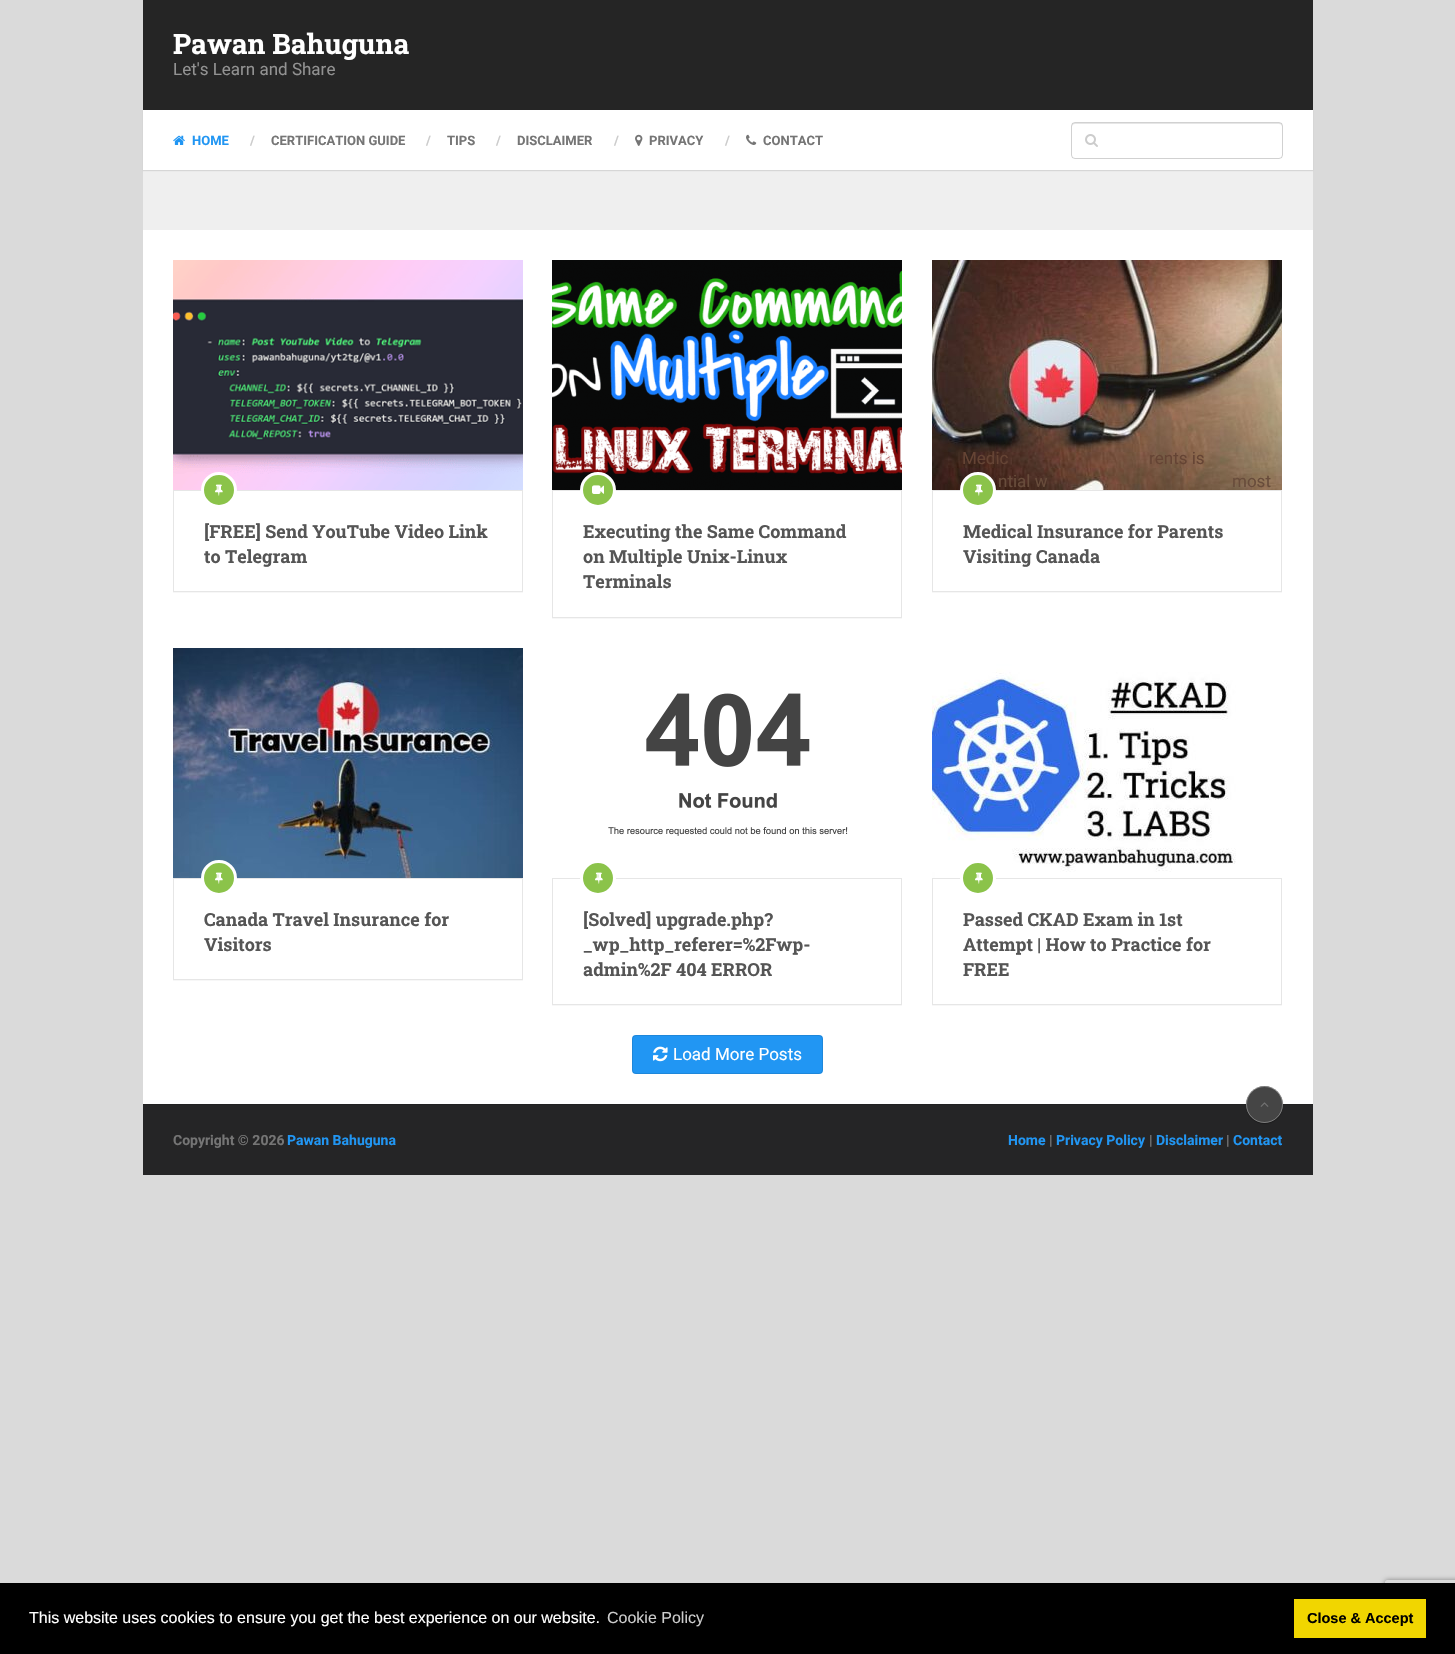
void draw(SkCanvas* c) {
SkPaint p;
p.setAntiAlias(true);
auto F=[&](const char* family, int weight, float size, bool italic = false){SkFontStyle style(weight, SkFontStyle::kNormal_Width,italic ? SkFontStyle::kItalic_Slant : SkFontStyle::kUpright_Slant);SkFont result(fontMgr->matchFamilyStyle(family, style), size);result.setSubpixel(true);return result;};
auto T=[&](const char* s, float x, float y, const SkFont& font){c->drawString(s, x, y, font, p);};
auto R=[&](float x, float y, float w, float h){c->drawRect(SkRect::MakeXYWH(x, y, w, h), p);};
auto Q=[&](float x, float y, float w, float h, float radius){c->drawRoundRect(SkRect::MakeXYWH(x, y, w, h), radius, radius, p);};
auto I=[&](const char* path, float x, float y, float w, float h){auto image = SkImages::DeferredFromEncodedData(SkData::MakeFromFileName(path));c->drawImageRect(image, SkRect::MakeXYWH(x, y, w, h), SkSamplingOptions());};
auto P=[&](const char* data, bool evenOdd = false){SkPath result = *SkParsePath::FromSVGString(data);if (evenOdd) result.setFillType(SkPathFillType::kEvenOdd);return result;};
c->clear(0xffdadada);
p.setColor(0xff252525);
R(143,0,1170,110);
auto f1 = F("Roboto Slab",700,28);
p.setColor(0xffffffff);
T("Pawan Bahuguna",173,54,f1);
auto f2 = F("Roboto",400,17);
p.setColor(0xff929292);
T("Let's Learn and Share",173,75,f2);
p.setColor(0xffefefef);
R(143,170,1170,60);
p.setColor(0x1a000000);
p.setMaskFilter(SkMaskFilter::MakeBlur(kNormal_SkBlurStyle, .5));
c->drawRect(SkRect::MakeXYWH(143,111,1170,60),p);
p.setMaskFilter(nullptr);
p.setColor(0xffffffff);
R(143,110,1170,60);
I("1.png",173,135,12,10);
auto f3 = F("Roboto",700,13);
p.setColor(0xff2196f3);
T("HOME",192,145,f3);
p.setColor(0xffcccccc);
T("/",250,145,f3);
p.setColor(0xff757575);
T("CERTIFICATION GUIDE",271,145,f3);
p.setColor(0xffcccccc);
T("/",426,145,f3);
p.setColor(0xff757575);
T("TIPS",447,145,f3);
p.setColor(0xffcccccc);
T("/",496,145,f3);
p.setColor(0xff757575);
T("DISCLAIMER",517,145,f3);
p.setColor(0xffcccccc);
T("/",614,145,f3);
I("2.png",635,134,8,12);
p.setColor(0xff757575);
T("PRIVACY",649,145,f3);
p.setColor(0xffcccccc);
T("/",725,145,f3);
I("3.png",746,134,11,11);
p.setColor(0xff757575);
T("CONTACT",763,145,f3);
p.setColor(0xffe6e6e6);
c->drawPath(P("M1075 124h204c2 0 3 1 3 3v-1c0-2-1-3-3-3h-204c-2 0-3 1-3 3v1c0-2 1-3 3-3z"),p);
p.setStroke(true);
p.setStrokeWidth(1);
p.setColor(0x2e000000);
c->drawRoundRect(SkRect::MakeXYWH(1071.5,122.5,211,36),3.5,3.5,p);
I("4.png",1085,134,13,13);
p.setStroke(false);
p.setColor(0xffffffff);
R(143,230,1170,874);
p.setColor(0xfff7f7f7);
R(173,592,350,1);
I("5.png",173,260,350,230);
p.setStroke(true);
p.setColor(0xffe6e6e6);
c->drawRect(SkRect::MakeXYWH(173.5,490.5,349,101),p);
p.setStroke(false);
p.setColor(0xff8bc34a);
c->drawCircle(219,490,16.5,p);
p.setStroke(true);
p.setStrokeWidth(3);
p.setColor(0xffffffff);
c->drawCircle(219,490,16.5,p);
I("6.png",215,484,8,12);
auto f4 = F("Roboto Slab",700,18);
p.setStroke(false);
p.setColor(0xff555555);
T("[FREE] Send YouTube Video Link",204,538,f4);
T("to Telegram",204,563,f4);
p.setColor(0xfff7f7f7);
R(552,618,350,1);
I("7.png",552,260,350,230);
p.setStroke(true);
p.setStrokeWidth(1);
p.setColor(0xffe6e6e6);
c->drawRect(SkRect::MakeXYWH(552.5,490.5,349,127),p);
p.setStroke(false);
p.setColor(0xff8bc34a);
c->drawCircle(598,490,16.5,p);
p.setStroke(true);
p.setStrokeWidth(3);
p.setColor(0xffffffff);
c->drawCircle(598,490,16.5,p);
I("8.png",592,485,12,9);
p.setStroke(false);
p.setColor(0xff555555);
T("Executing the Same Command",583,538,f4);
T("on Multiple Unix-Linux",583,563,f4);
T("Terminals",583,588,f4);
p.setColor(0xfff7f7f7);
R(932,592,350,1);
I("9.png",932,260,350,230);
p.setColor(0xff654434);
T("Medic",962,464,f2);
T("rents is",1149,464,f2);
p.setColor(0xff684c3b);
T("ntial w",998,487,f2);
T("most",1232,487,f2);
p.setStroke(true);
p.setStrokeWidth(1);
p.setColor(0xffe6e6e6);
c->drawRect(SkRect::MakeXYWH(932.5,490.5,349,101),p);
p.setStroke(false);
p.setColor(0xff8bc34a);
c->drawCircle(978,490,16.5,p);
p.setStroke(true);
p.setStrokeWidth(3);
p.setColor(0xffffffff);
c->drawCircle(978,490,16.5,p);
I("6.png",975,484,8,12);
p.setStroke(false);
p.setColor(0xff555555);
T("Medical Insurance for Parents",963,538,f4);
T("Visiting Canada",963,563,f4);
p.setColor(0xfff7f7f7);
R(173,980,350,1);
I("10.png",173,648,350,230);
p.setStroke(true);
p.setStrokeWidth(1);
p.setColor(0xffe6e6e6);
c->drawRect(SkRect::MakeXYWH(173.5,878.5,349,101),p);
p.setStroke(false);
p.setColor(0xff8bc34a);
c->drawCircle(219,878,16.5,p);
p.setStroke(true);
p.setStrokeWidth(3);
p.setColor(0xffffffff);
c->drawCircle(219,878,16.5,p);
I("6.png",215,872,8,12);
p.setStroke(false);
p.setColor(0xff555555);
T("Canada Travel Insurance for",204,926,f4);
T("Visitors",204,951,f4);
p.setColor(0xfff7f7f7);
R(552,1005,350,1);
I("11.png",552,648,350,230);
p.setStroke(true);
p.setStrokeWidth(1);
p.setColor(0xffe6e6e6);
c->drawRect(SkRect::MakeXYWH(552.5,878.5,349,126),p);
p.setStroke(false);
p.setColor(0xff8bc34a);
c->drawCircle(598,878,16.5,p);
p.setStroke(true);
p.setStrokeWidth(3);
p.setColor(0xffffffff);
c->drawCircle(598,878,16.5,p);
I("6.png",595,872,8,12);
p.setStroke(false);
p.setColor(0xff555555);
T("[Solved] upgrade.php?",583,926,f4);
T("_wp_http_referer=%2Fwp-",583,951,f4);
T("admin%2F 404 ERROR",583,976,f4);
p.setColor(0xfff7f7f7);
R(932,1005,350,1);
I("12.png",932,648,350,230);
p.setStroke(true);
p.setStrokeWidth(1);
p.setColor(0xffe6e6e6);
c->drawRect(SkRect::MakeXYWH(932.5,878.5,349,126),p);
p.setStroke(false);
p.setColor(0xff8bc34a);
c->drawCircle(978,878,16.5,p);
p.setStroke(true);
p.setStrokeWidth(3);
p.setColor(0xffffffff);
c->drawCircle(978,878,16.5,p);
I("6.png",975,872,8,12);
p.setStroke(false);
p.setColor(0xff555555);
T("Passed CKAD Exam in 1st",963,926,f4);
T("Attempt | How to Practice for",963,951,f4);
T("FREE",963,976,f4);
p.setColor(0xff2196f3);
Q(632,1035,191,39,4);
p.setStroke(true);
p.setStrokeWidth(1);
p.setColor(0x1a000000);
c->drawRoundRect(SkRect::MakeXYWH(632.5,1035.5,190,38),3.5,3.5,p);
I("13.png",653,1046,15,16);
p.setStroke(false);
p.setColor(0xffffffff);
T("Load More Posts",673,1060,f2);
p.setColor(0xff252526);
R(143,1105,1170,70);
p.setColor(0xff212122);
R(143,1104,1170,1);
p.setColor(0x4d000000);
p.setMaskFilter(SkMaskFilter::MakeBlur(kNormal_SkBlurStyle, .5));
c->drawRoundRect(SkRect::MakeXYWH(1246,1087,37,37),18.5,18.5,p);
p.setMaskFilter(nullptr);
p.setColor(0xff454545);
c->drawCircle(1264.5,1104.5,18.5,p);
p.setStroke(true);
p.setColor(0x4dffffff);
c->drawCircle(1264.5,1104.5,18,p);
I("14.png",1260,1102,9,5);
auto f5 = F("Roboto",700,14);
p.setStroke(false);
p.setColor(0xff757575);
T("Copyright © 2026",173,1145,f5);
p.setColor(0xff2196f3);
T("Pawan Bahuguna",287,1145,f5);
T("Home",1008,1145,f5);
p.setColor(0xff757575);
T("|",1049,1145,f5);
p.setColor(0xff2196f3);
T("Privacy Policy",1056,1145,f5);
p.setColor(0xff757575);
T("|",1149,1145,f5);
p.setColor(0xff2196f3);
T("Disclaimer",1156,1145,f5);
p.setColor(0xff757575);
T("|",1226,1145,f5);
p.setColor(0xff2196f3);
T("Contact",1233,1145,f5);
c->save();
c->clipPath(P("M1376 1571h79v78h-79zm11 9h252c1 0 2 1 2 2v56c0 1-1 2-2 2h-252c-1 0-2-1-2-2v-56c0-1 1-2 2-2z",true),true);
p.setColor(0xff808080);
p.setMaskFilter(SkMaskFilter::MakeBlur(kNormal_SkBlurStyle, 2.5));
c->drawRoundRect(SkRect::MakeXYWH(1385,1580,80,60),2,2,p);
p.setMaskFilter(nullptr);
c->restore();
p.setColor(0xff000000);
R(0,1583,1455,71);
auto f6 = F("Liberation Sans",400,16);
p.setColor(0xffffffff);
T("This website uses cookies to ensure you get the best experience on our website.",29,1623,f6);
p.setColor(0xffcccccc);
T("Cookie Policy",607,1623,f6);
p.setColor(0xfff1d600);
R(1294,1599,132,39);
auto f7 = F("Liberation Sans",700,14.5);
p.setColor(0xff000000);
T("Close & Accept",1307,1623,f7);
}
